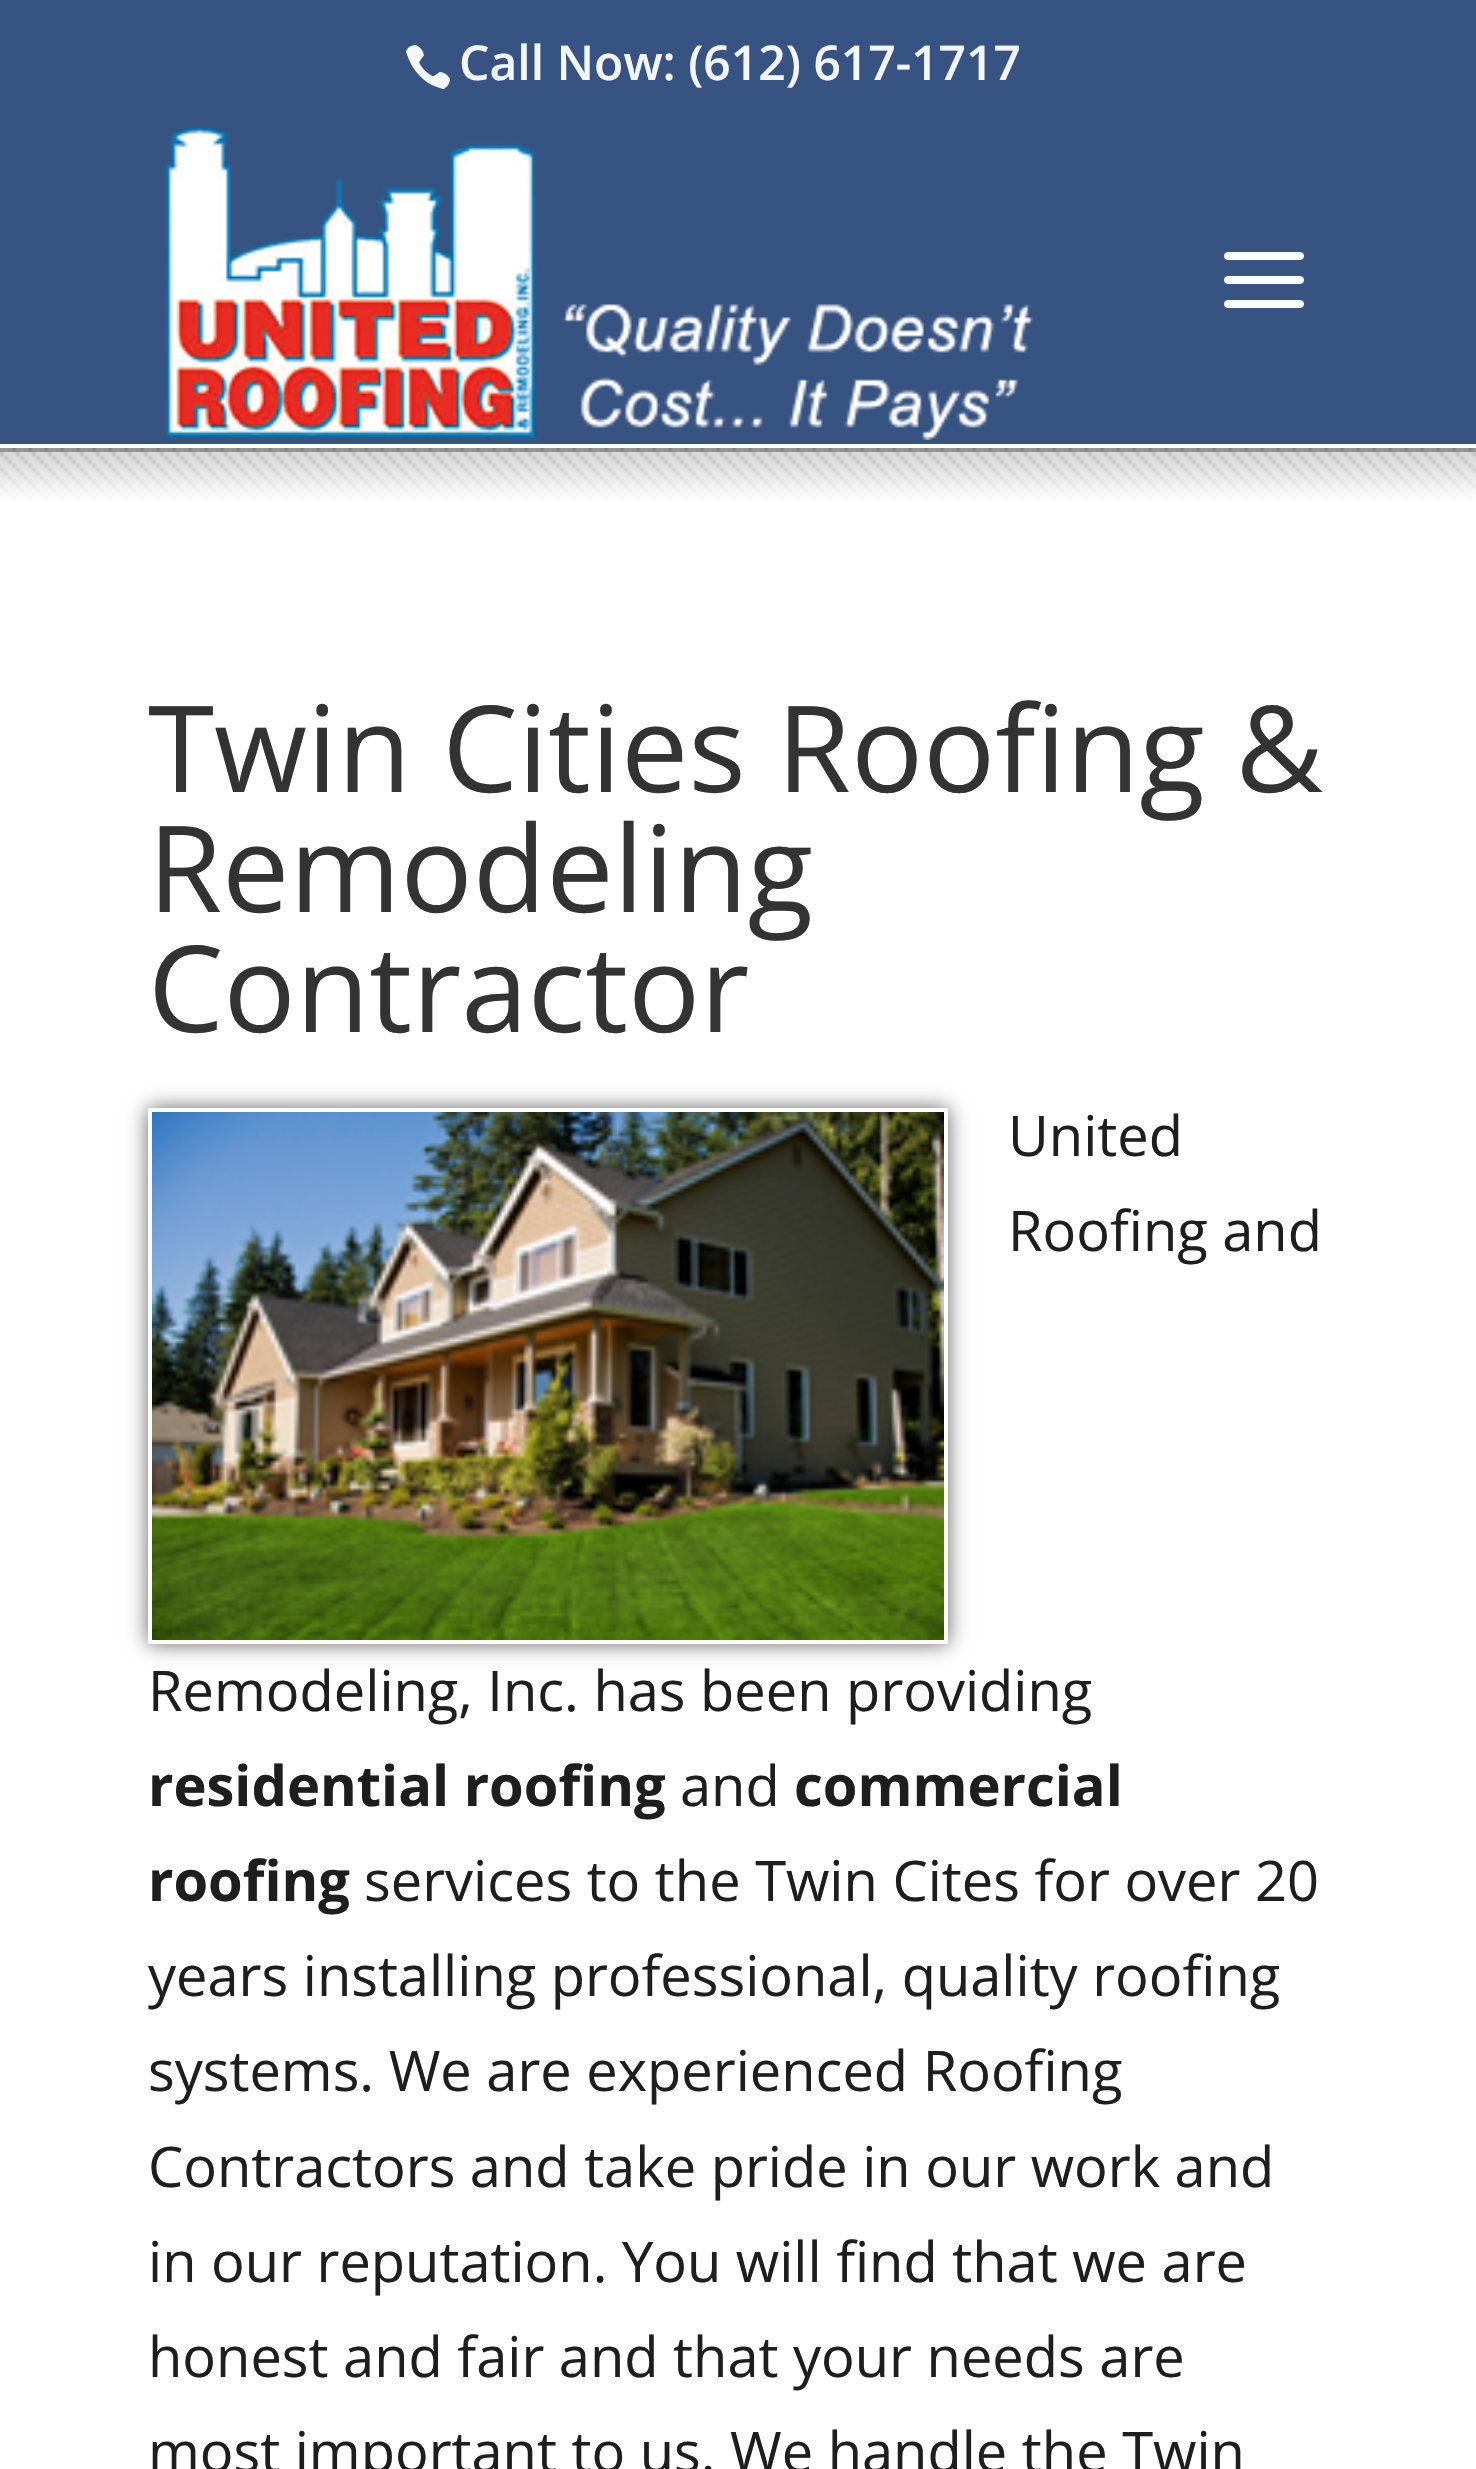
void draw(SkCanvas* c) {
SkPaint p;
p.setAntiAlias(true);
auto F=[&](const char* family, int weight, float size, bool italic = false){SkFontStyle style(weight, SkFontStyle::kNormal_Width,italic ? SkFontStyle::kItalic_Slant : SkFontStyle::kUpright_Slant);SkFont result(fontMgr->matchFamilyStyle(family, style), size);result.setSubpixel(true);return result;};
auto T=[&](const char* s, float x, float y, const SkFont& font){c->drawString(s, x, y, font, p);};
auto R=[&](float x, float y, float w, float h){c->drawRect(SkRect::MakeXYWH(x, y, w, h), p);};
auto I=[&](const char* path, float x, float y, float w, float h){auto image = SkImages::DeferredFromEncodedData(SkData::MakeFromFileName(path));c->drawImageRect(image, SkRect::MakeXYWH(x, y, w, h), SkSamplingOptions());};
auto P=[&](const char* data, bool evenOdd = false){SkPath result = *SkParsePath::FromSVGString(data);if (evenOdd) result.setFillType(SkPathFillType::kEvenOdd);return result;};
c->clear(0xff375382);
I("1.png",406,45,44,44);
auto f1 = F("Open Sans",600,48);
p.setColor(0xfff5f6f9);
T("Call Now: (612) 617-1717",459,80,f1);
I("4.png",0,448,1476,52);
p.setColor(0x4d000000);
R(0,448,1476,4);
p.setColor(0xffffffff);
R(0,444,1476,4);
I("2.png",164,128,870,312);
I("3.png",1224,252,80,56);
R(0,500,1476,1969);
auto f2 = F("Open Sans",400,120);
p.setColor(0xff333333);
T("Twin Cities Roofing &",148,792,f2);
T("Remodeling",148,912,f2);
T("Contractor",148,1032,f2);
c->save();
c->clipPath(P("M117 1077h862v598h-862zm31 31h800v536h-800z",true),true);
p.setColor(0xff666666);
p.setMaskFilter(SkMaskFilter::MakeBlur(kNormal_SkBlurStyle, 10));
c->drawRect(SkRect::MakeXYWH(148,1108,800,536),p);
p.setMaskFilter(nullptr);
c->restore();
I("5.png",152,1112,792,528);
auto f3 = F("Open Sans",400,56);
p.setColor(0xff1e1e1e);
T("United",1008,1156,f3);
T("Roofing and",1008,1251,f3);
T("Remodeling, Inc. has been providing",148,1711,f3);
auto f4 = F("Open Sans",700,56);
T("residential roofing",148,1806,f4);
T("and",680,1806,f3);
T("commercial",794,1806,f4);
T("roofing",148,1901,f4);
T("services to the Twin Cites for over 20",364,1901,f3);
T("years installing professional, quality roofing",148,1996,f3);
T("systems. We are experienced Roofing",148,2091,f3);
T("Contractors and take pride in our work and",148,2187,f3);
T("in our reputation. You will find that we are",148,2282,f3);
T("honest and fair and that your needs are",148,2377,f3);
T("most important to us. We handle the Twin",148,2472,f3);
}
